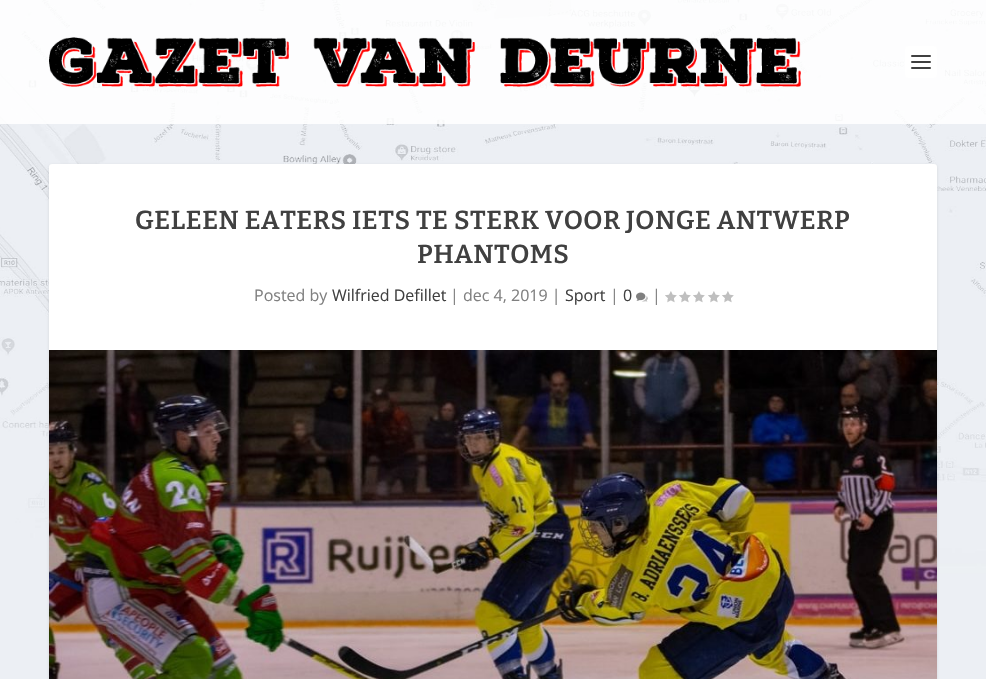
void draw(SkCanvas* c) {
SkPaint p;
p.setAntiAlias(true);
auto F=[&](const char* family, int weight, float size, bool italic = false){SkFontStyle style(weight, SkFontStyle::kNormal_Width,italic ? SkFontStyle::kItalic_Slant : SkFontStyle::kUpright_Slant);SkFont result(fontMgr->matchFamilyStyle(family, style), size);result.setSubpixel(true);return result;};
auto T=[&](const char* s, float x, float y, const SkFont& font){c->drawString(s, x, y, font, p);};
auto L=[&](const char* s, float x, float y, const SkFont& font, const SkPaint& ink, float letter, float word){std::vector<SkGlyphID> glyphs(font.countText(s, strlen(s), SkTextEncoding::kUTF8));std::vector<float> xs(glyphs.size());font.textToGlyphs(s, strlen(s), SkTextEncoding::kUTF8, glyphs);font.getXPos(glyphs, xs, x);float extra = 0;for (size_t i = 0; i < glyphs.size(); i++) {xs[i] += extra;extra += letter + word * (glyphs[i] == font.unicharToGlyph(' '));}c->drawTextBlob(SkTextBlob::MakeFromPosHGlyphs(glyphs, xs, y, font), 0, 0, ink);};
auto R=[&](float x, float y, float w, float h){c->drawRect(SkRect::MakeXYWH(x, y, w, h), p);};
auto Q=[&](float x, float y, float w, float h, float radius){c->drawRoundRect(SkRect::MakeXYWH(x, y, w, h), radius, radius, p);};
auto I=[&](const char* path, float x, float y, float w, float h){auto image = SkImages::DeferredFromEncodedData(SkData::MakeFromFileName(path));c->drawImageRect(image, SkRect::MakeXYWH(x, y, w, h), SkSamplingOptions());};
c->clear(0xffffffff);
I("1.png",0,0,986,679);
p.setColor(0xe0ffffff);
R(0,0,986,124);
I("2.png",49,37,752,50);
p.setColor(0xffffffff);
Q(905,46,32,32,3);
p.setColor(0xff404040);
Q(911,55,20,2,1);
Q(911,61,20,2,1);
Q(911,67,20,2,1);
p.setColor(0x1a000000);
p.setMaskFilter(SkMaskFilter::MakeBlur(kNormal_SkBlurStyle, 1.5));
c->drawRoundRect(SkRect::MakeXYWH(49,165,888,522),3,3,p);
p.setMaskFilter(nullptr);
p.setColor(0xffffffff);
Q(49,164,888,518,3);
auto f1 = F("Bitter",100,26);
p.setColor(0xff404040);
L("GELEEN EATERS IETS TE STERK VOOR JONGE ANTWERP",135,229,f1,p,.5,0);
L("PHANTOMS",417,263,f1,p,.5,0);
auto f2 = F("Open Sans",400,16);
p.setColor(0xff808080);
T("Posted by",254,301,f2);
p.setColor(0xff404040);
T("Wilfried Defillet",332,301,f2);
p.setColor(0xff808080);
T("| dec 4, 2019 |",450,301,f2);
p.setColor(0xff404040);
T("Sport",565,301,f2);
p.setColor(0xff808080);
T("|",610,301,f2);
p.setColor(0xff404040);
T("0",623,301,f2);
I("3.png",636,292,12,10);
p.setColor(0xff808080);
T("|",652,301,f2);
I("4.png",665,291,12,12);
I("4.png",679,291,12,12);
I("4.png",693,291,12,12);
I("4.png",708,291,12,12);
I("4.png",722,291,12,12);
I("5.png",49,350,888,329);
}
